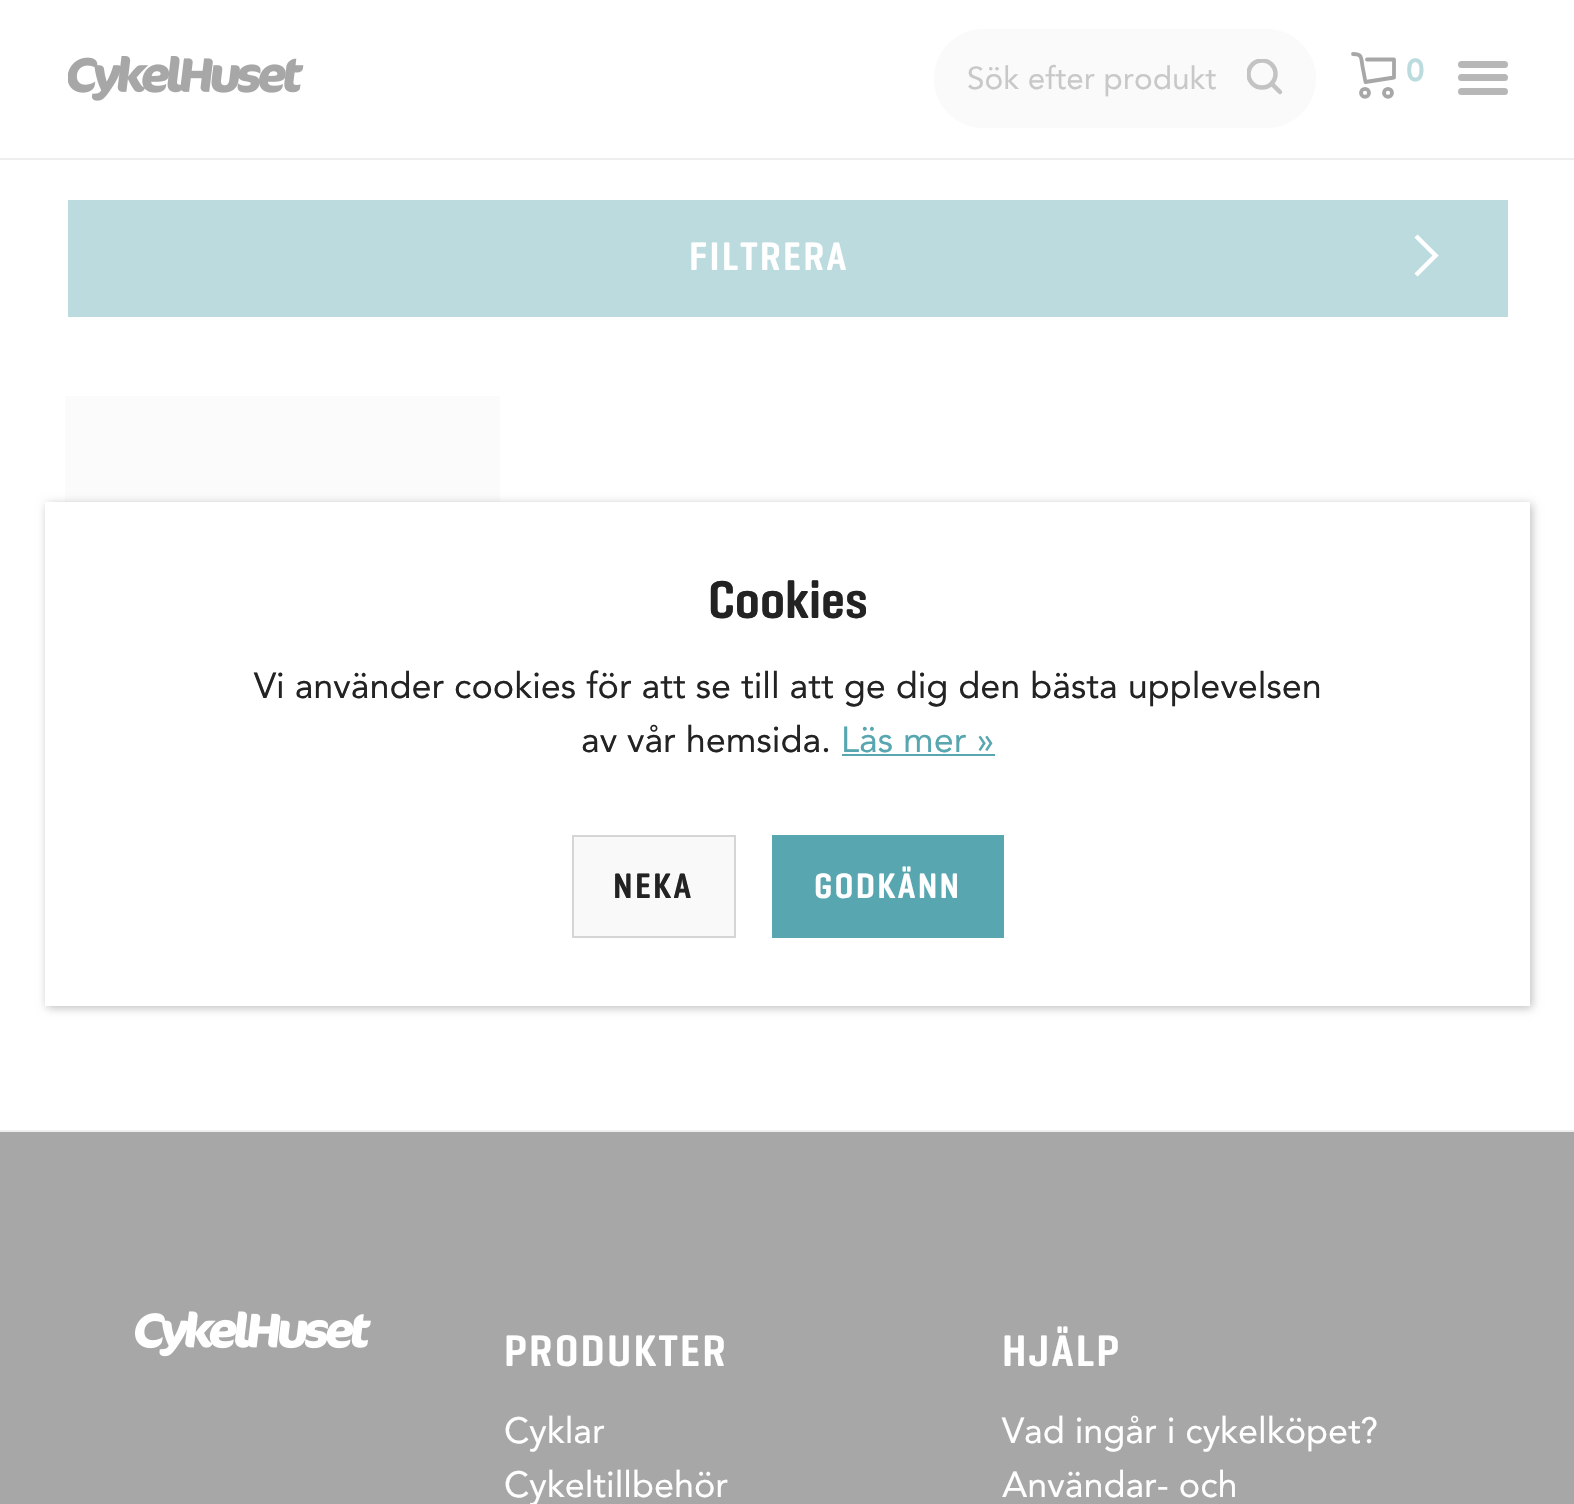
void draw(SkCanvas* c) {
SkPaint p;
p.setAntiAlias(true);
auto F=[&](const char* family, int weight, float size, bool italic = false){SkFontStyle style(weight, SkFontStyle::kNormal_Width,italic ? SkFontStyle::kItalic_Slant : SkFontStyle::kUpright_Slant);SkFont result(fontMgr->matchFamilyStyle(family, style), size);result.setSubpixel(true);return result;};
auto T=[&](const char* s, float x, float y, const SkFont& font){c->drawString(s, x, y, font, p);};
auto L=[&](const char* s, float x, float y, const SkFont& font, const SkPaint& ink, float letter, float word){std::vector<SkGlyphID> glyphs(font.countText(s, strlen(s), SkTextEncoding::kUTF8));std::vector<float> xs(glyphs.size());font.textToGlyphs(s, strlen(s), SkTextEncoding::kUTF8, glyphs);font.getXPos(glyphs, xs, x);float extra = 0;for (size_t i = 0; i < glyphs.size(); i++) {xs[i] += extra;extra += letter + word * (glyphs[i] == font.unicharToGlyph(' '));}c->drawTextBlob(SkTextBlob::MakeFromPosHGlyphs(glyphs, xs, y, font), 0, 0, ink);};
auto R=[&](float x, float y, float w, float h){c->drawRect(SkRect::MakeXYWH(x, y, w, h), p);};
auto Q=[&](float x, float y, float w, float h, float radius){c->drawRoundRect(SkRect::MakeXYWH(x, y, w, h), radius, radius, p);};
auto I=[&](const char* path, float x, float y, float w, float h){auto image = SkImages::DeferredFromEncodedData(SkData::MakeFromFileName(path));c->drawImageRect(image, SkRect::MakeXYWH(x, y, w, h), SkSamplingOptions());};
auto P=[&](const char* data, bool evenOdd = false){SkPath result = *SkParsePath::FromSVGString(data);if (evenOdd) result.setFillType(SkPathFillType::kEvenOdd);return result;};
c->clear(0xffffffff);
p.setColor(0xffeeeeee);
R(0,158,1574,2);
I("1.png",68,56,236,45);
p.setColor(0xfffafafa);
Q(934,29,382,99,49.5);
auto f1 = F("avenir",400,31.5);
p.setColor(0xffc8c8c8);
T("Sök efter produkt",967,89,f1);
c->save();
c->clipRect(SkRect::MakeXYWH(1247,59,36,36));
p.setStroke(true);
p.setStrokeWidth(4.5);
p.setColor(0xffc3c3c3);
c->drawCircle(1262,74,13.5,p);
c->restore();
p.setStrokeCap(SkPaint::kRound_Cap);
p.setStrokeJoin(SkPaint::kRound_Join);
c->drawPath(P("M1272.5 84.5l7.5 7.5"),p);
p.setStrokeWidth(3.8);
p.setStrokeJoin(SkPaint::kMiter_Join);
p.setColor(0xffa7a7a7);
c->drawPath(P("M1369 93c0 5-8 5-8 0c0-5.5 8-5.5 8 0zm23 0c0 5-8 5-8 0c0-5.5 8-5.5 8 0z"),p);
p.setStrokeJoin(SkPaint::kRound_Join);
c->drawPath(P("M1353 54c9.5 0 8 4 9.5 12.5l3 15.5l28.5-4.5v-18h-27"),p);
auto f2 = F("avenir",900,31.5);
p.setStroke(false);
p.setColor(0xffbcdbdf);
T("0",1406,81,f2);
p.setColor(0xffb7b7b7);
Q(1458,61,50,7,3.5);
Q(1458,74,50,7,3.5);
Q(1458,88,50,7,3.5);
p.setColor(0xffeeeeee);
R(0,1130,1574,2);
p.setColor(0xffbcdbdf);
R(68,200,1440,117);
auto f3 = F("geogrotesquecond",600,40.5);
p.setColor(0xffffffff);
L("FILTRERA",689,270,f3,p,2.25,0);
p.setStroke(true);
p.setStrokeWidth(4.5);
p.setStrokeCap(SkPaint::kButt_Cap);
p.setStrokeJoin(SkPaint::kMiter_Join);
c->drawPath(P("M1416 275l19.5-19.5l-19.5-19.5"),p);
p.setStroke(false);
p.setColor(0xfffbfbfb);
R(65,396,435,106);
p.setColor(0x40000000);
p.setMaskFilter(SkMaskFilter::MakeBlur(kNormal_SkBlurStyle, 4.5));
c->drawRect(SkRect::MakeXYWH(47,504,1485,504),p);
p.setMaskFilter(nullptr);
p.setColor(0xffffffff);
R(45,502,1485,504);
auto f4 = F("geogrotesquecond",600,54);
p.setColor(0xff232323);
T("Cookies",708,618,f4);
auto f5 = F("avenir",400,36);
T("Vi använder cookies för att se till att ge dig den bästa upplevelsen",254,698,f5);
T("av vår hemsida.",581,752,f5);
p.setColor(0xff57a6b0);
T("Läs mer »",841,752,f5);
R(842,754,153,2);
p.setColor(0xfff9f9f9);
c->drawRect(SkRect::MakeXYWH(573,836,162,101),p);
p.setStroke(true);
p.setStrokeWidth(2);
p.setColor(0xffd5d5d5);
c->drawRect(SkRect::MakeXYWH(573,836,162,101),p);
auto f6 = F("geogrotesquecond",600,36);
p.setStroke(false);
p.setColor(0xff232323);
L("NEKA",613,898,f6,p,2.25,0);
p.setColor(0xff57a6b0);
R(772,835,232,103);
p.setColor(0xffffffff);
L("GODKÄNN",814,898,f6,p,2.25,0);
p.setColor(0xffa7a7a7);
R(0,1132,1574,372);
I("2.png",135,1311,236,46);
auto f7 = F("geogrotesquecond",600,45);
p.setColor(0xffffffff);
L("PRODUKTER",504,1366,f7,p,2.25,0);
T("Cyklar",504,1443,f5);
T("Cykeltillbehör",504,1497,f5);
L("HJÄLP",1002,1366,f7,p,2.25,0);
T("Vad ingår i cykelköpet?",1002,1443,f5);
T("Användar- och",1002,1497,f5);
}
